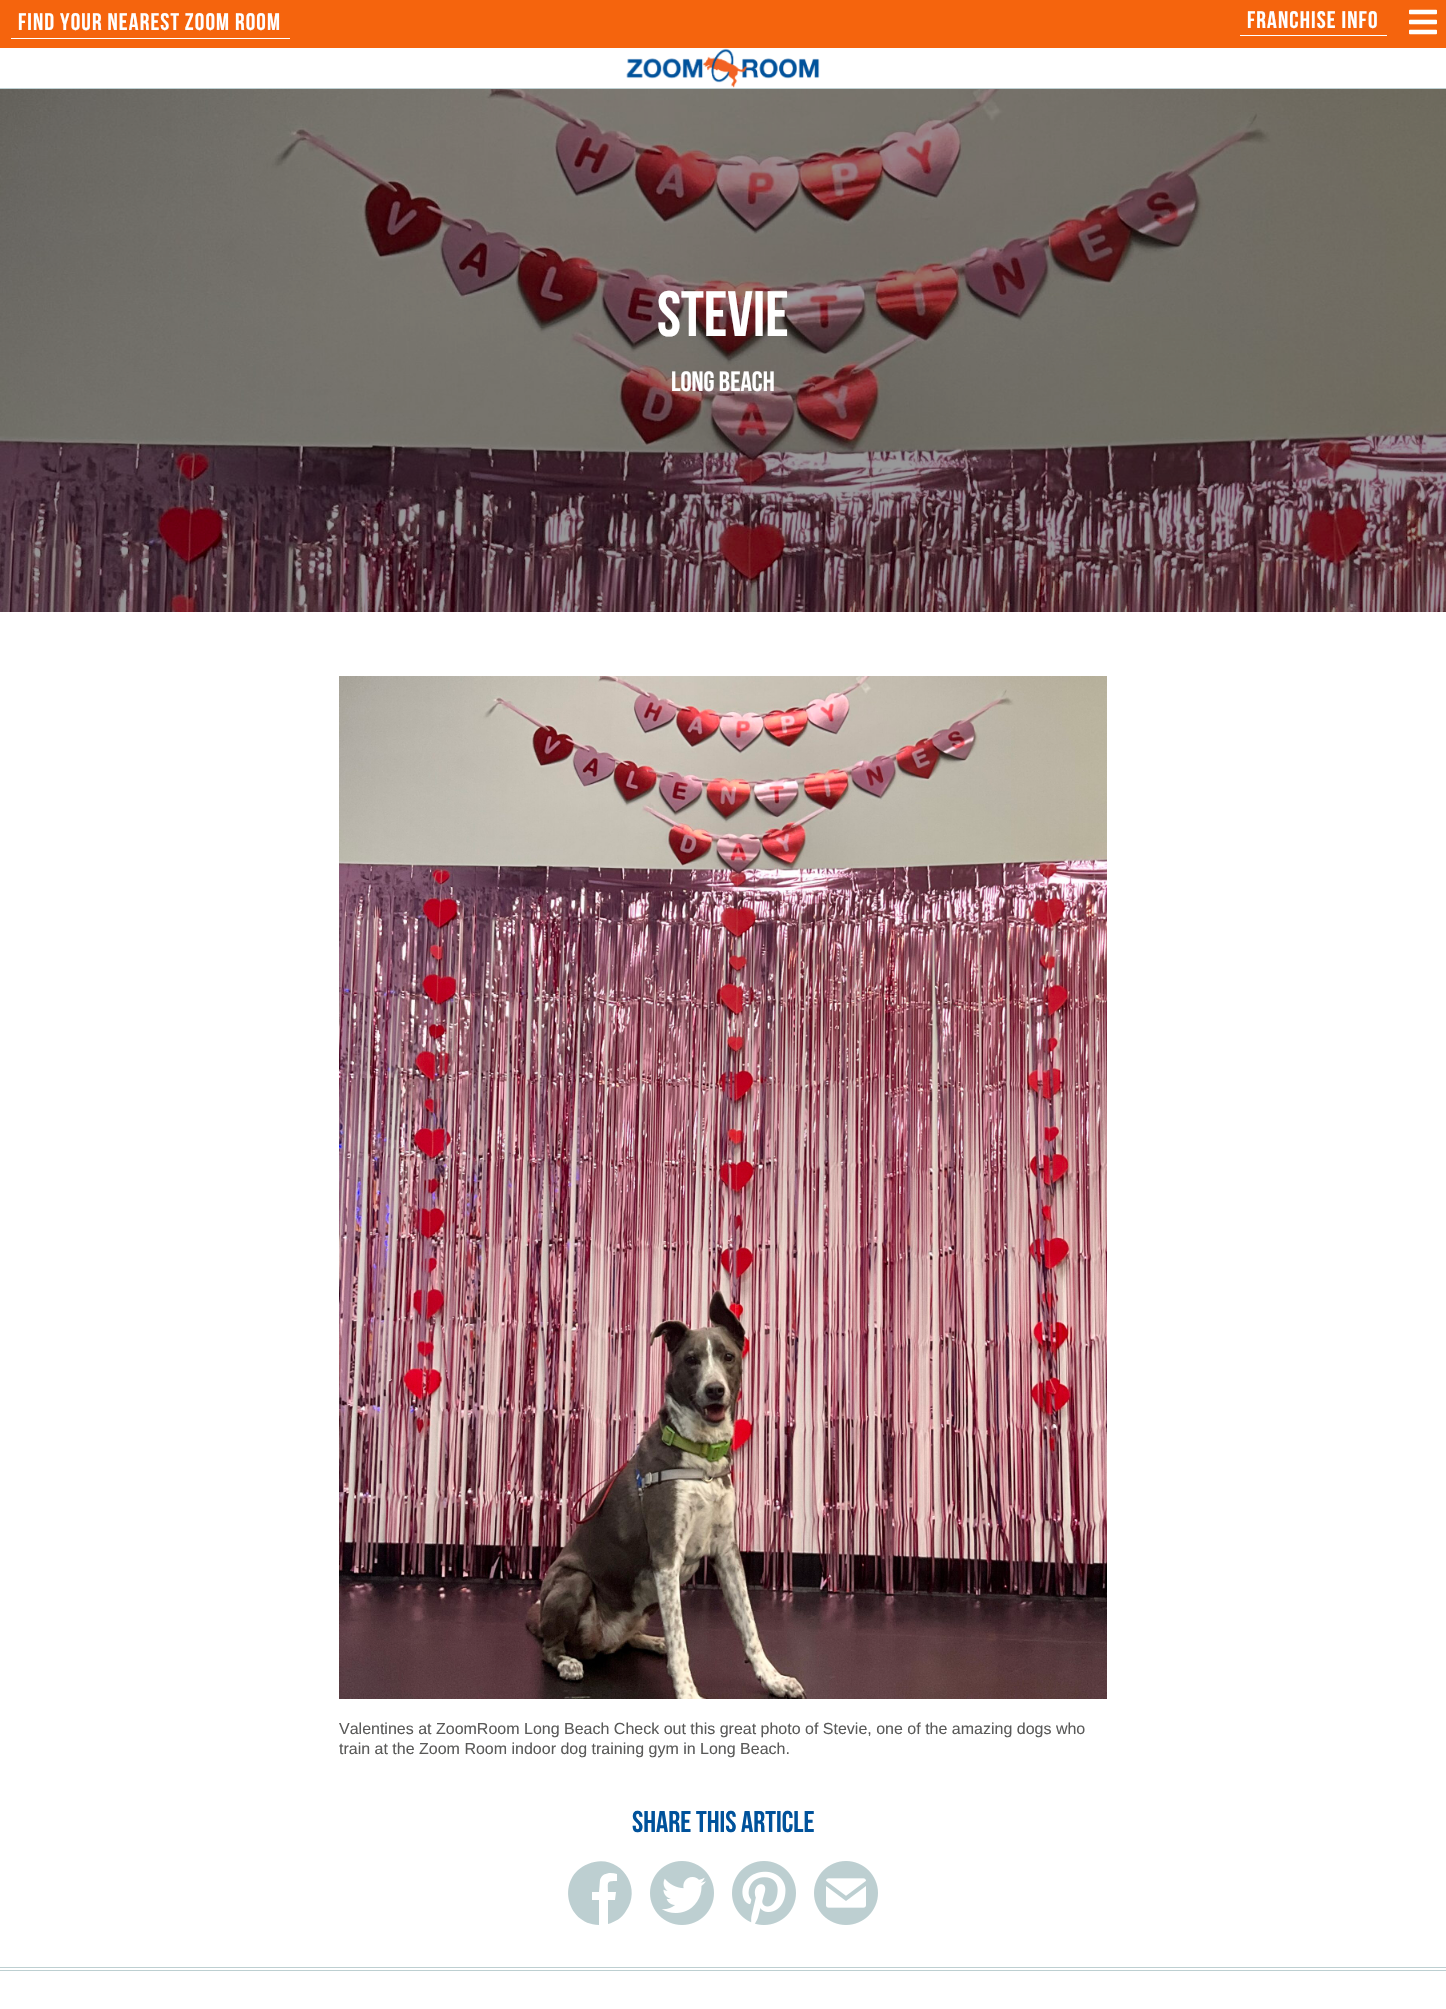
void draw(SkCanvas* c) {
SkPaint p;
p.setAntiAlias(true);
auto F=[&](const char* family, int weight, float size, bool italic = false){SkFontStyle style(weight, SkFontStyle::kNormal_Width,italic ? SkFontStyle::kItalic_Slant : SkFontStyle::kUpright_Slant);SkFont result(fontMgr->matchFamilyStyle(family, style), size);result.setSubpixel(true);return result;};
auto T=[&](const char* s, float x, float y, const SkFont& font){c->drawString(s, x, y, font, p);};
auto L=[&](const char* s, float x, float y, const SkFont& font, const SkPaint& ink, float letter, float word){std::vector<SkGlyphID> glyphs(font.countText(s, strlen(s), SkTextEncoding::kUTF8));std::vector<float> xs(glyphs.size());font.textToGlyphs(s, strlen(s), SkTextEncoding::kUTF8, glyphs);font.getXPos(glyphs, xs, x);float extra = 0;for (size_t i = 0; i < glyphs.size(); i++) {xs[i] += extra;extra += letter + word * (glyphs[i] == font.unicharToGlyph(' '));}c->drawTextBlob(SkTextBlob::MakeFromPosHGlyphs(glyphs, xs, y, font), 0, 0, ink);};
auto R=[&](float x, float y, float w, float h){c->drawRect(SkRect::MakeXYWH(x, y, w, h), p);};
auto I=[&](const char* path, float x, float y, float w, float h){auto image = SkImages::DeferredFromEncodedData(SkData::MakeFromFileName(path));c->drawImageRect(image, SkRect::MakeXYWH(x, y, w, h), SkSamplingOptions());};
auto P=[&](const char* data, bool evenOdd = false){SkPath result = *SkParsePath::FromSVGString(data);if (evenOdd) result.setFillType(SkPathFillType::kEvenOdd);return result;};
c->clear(0xffffffff);
p.setColor(0xfff5640d);
R(0,0,1446,48);
auto f1 = F("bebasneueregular",400,24);
p.setColor(0xffffffff);
L("find your nearest zoom room",18,30,f1,p,1.1,0);
R(11,38,279,1);
R(1240,35,147,1);
L("franchise info",1247,28,f1,p,1.1,0);
I("1.png",1409,9,28,26);
p.setColor(0xffbdcfd1);
R(0,88,1446,1);
I("2.png",626,48,194,40);
I("3.png",0,89,1446,523);
auto f2 = F("bebasneueregular",400,64);
p.setColor(0xffffffff);
T("Stevie",657,336,f2);
auto f3 = F("bebasneueregular",400,28);
T("Long Beach",671,391,f3);
p.setColor(0xffbdcfd1);
R(0,1967,1446,1);
R(0,1970,1446,1);
I("4.png",339,676,768,1023);
auto f4 = F("Liberation Sans",400,16);
p.setColor(0xff5a5a59);
T("Valentines at ZoomRoom Long Beach Check out this great photo of Stevie, one of the amazing dogs who",339,1734,f4);
T("train at the Zoom Room indoor dog training gym in Long Beach.",339,1754,f4);
auto f5 = F("bebasneueregular",400,30);
p.setColor(0xff00529b);
T("Share this Article",632,1832,f5);
p.setColor(0xffbdcfd1);
c->drawPath(P("M588 1864c29-13 56 21 38 47c-4 7-11 11-18 13v-24h7l1-8h-8c0-10-2-11 9-11v-7c-7-2-15-1-17 6l-1 12h-7v8h7v25c-34-1-43-48-11-61z"),p);
I("5.png",650,1861,64,64);
I("6.png",732,1861,64,64);
I("7.png",814,1861,64,64);
}
